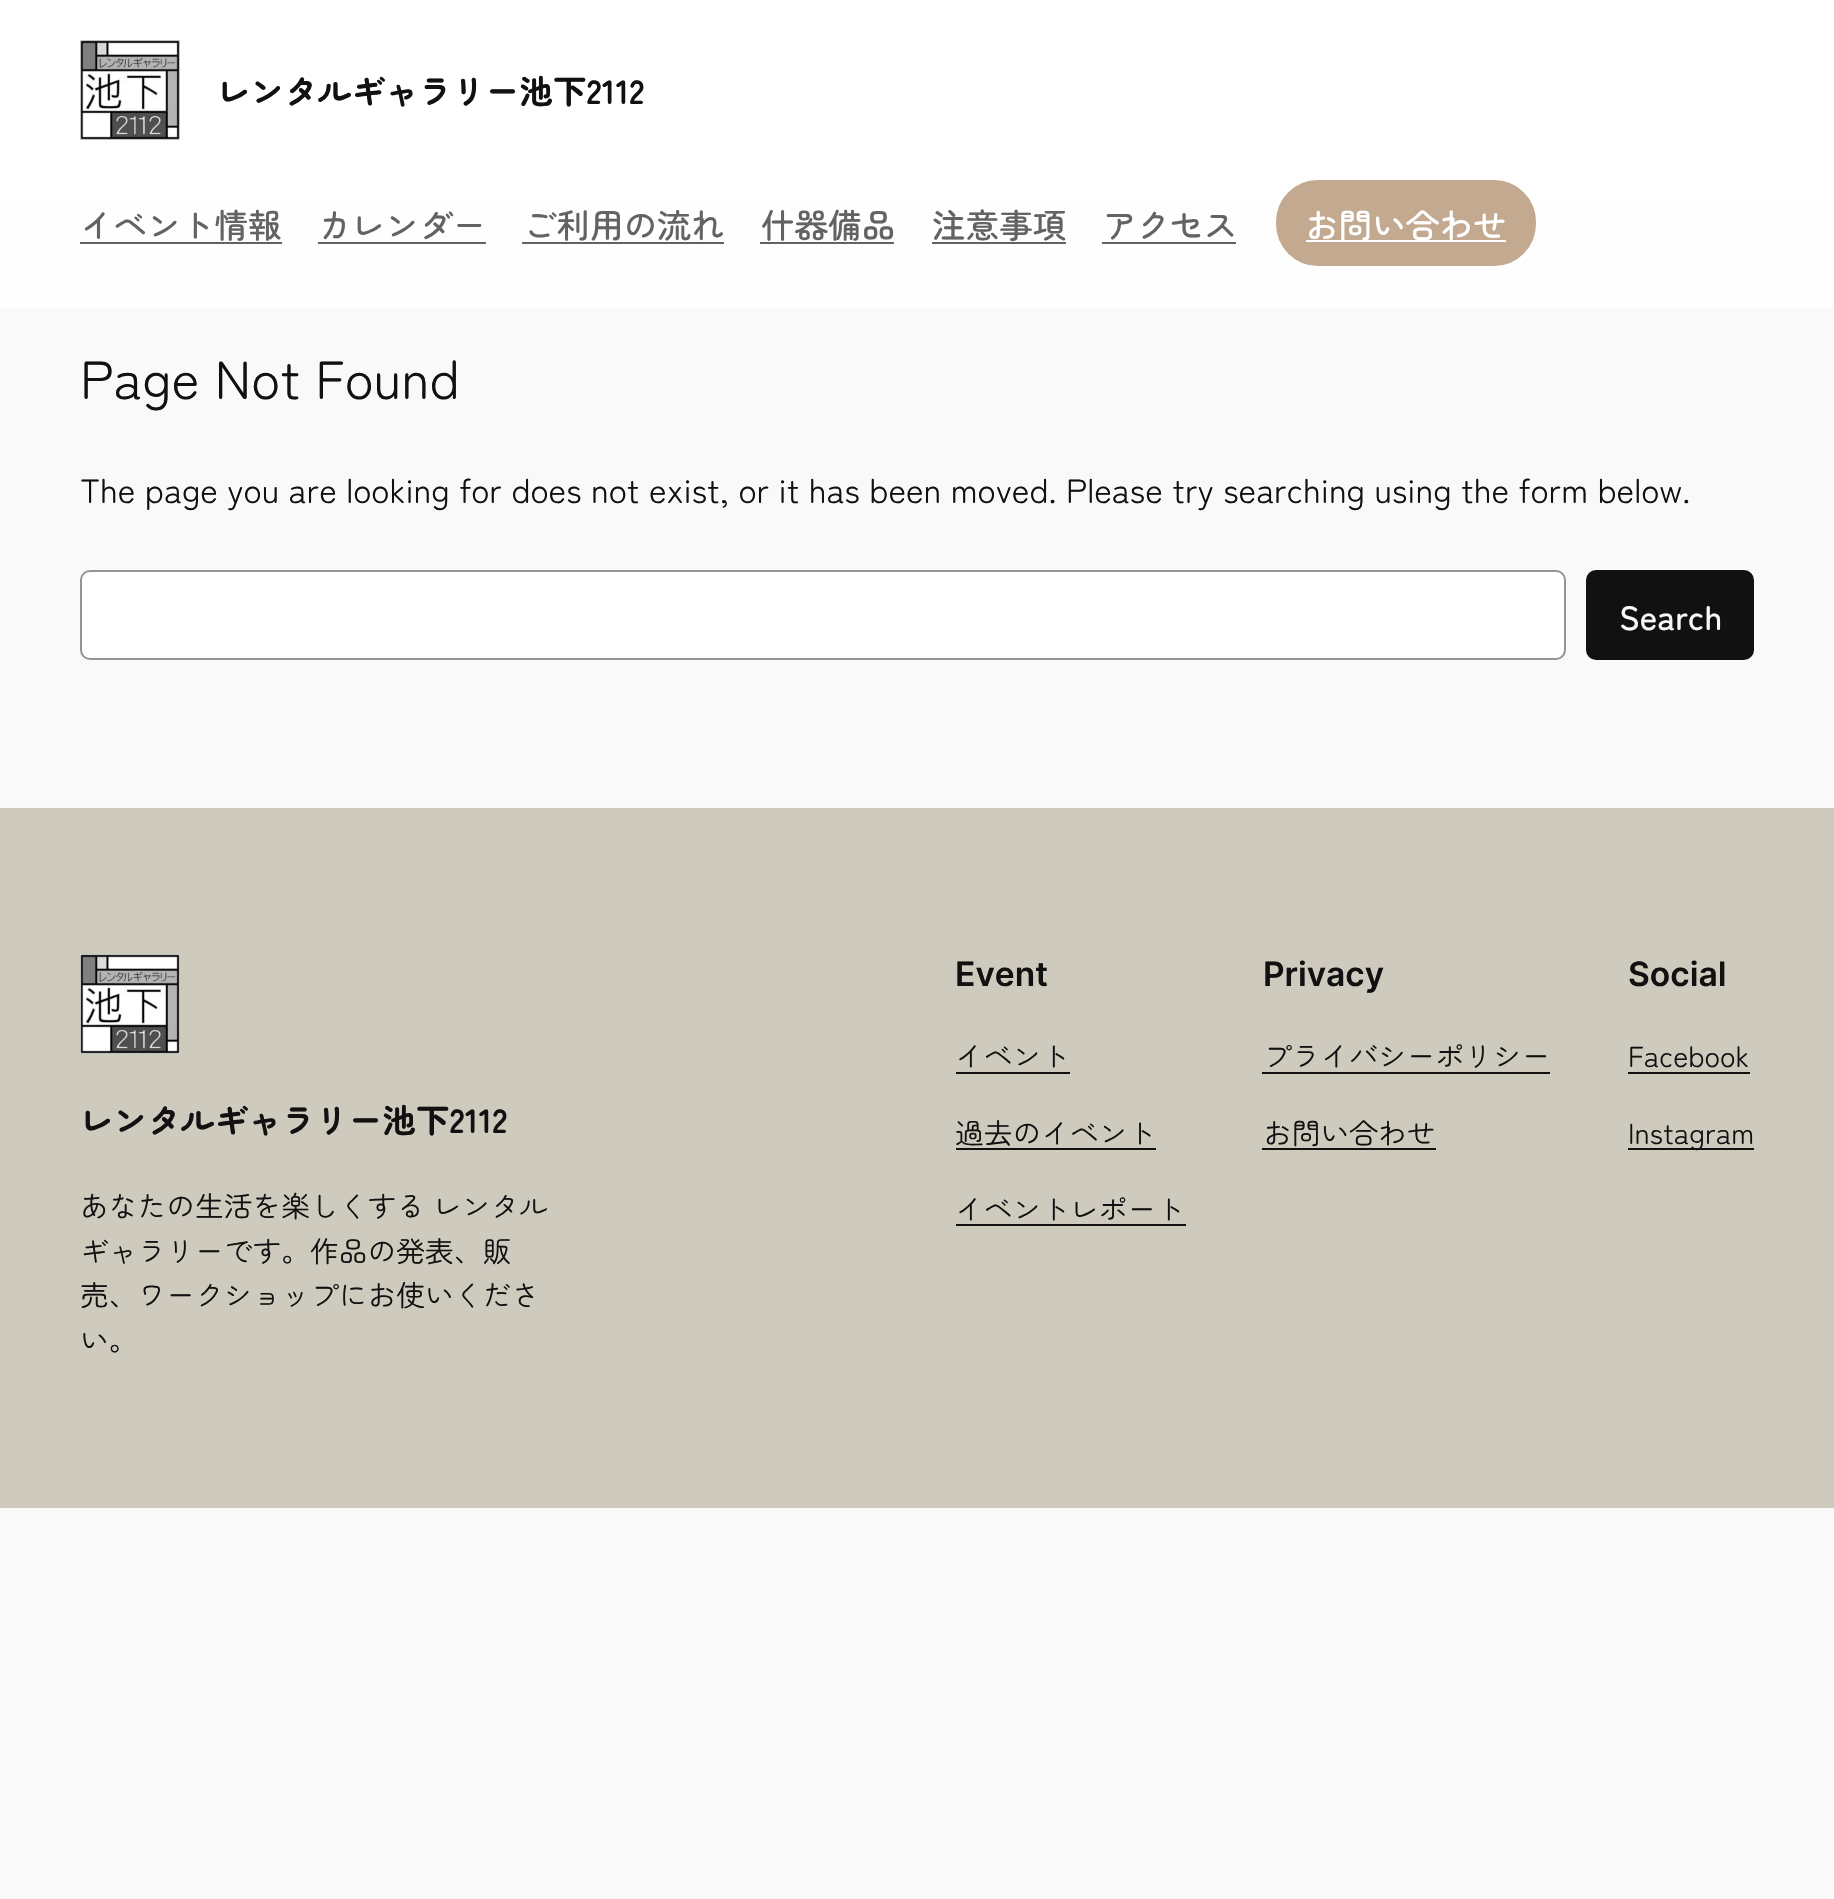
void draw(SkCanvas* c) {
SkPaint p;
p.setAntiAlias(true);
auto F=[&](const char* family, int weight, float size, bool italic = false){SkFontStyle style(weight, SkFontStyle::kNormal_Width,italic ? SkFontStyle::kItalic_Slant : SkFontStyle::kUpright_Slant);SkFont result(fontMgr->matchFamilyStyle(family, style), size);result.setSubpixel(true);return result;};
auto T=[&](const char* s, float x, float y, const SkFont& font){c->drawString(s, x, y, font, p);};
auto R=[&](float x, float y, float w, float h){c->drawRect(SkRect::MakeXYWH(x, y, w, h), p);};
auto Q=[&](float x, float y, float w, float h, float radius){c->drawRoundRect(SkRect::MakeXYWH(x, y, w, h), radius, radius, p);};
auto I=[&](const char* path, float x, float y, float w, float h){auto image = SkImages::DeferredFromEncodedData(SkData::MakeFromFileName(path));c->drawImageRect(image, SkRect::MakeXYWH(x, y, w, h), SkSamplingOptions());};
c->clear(0xfff9f9f9);
p.setColor(0xfffefefe);
R(0,200,1834,108);
p.setColor(0xffffffff);
R(0,0,1834,200);
I("1.png",80,40,100,100);
auto f1 = F("Zen Maru Gothic",700,33.6);
p.setColor(0xff111111);
T("レンタルギャラリー池下2112",217,104,f1);
auto f2 = F("Zen Maru Gothic",500,33.6);
p.setColor(0xff636363);
T("イベント情報",80,238,f2);
R(80,242,202,2);
T("カレンダー",318,238,f2);
R(318,242,168,2);
T("ご利用の流れ",523,238,f2);
R(522,242,202,2);
T("什器備品",761,238,f2);
R(760,242,134,2);
T("注意事項",932,238,f2);
R(932,242,134,2);
T("アクセス",1103,238,f2);
R(1102,242,134,2);
p.setColor(0xffc2a990);
c->drawRoundRect(SkRect::MakeXYWH(1275,179,262,88),43,43,p);
p.setStroke(true);
p.setStrokeWidth(2);
p.setColor(0xffffffff);
c->drawRoundRect(SkRect::MakeXYWH(1275,179,262,88),43,43,p);
p.setStroke(false);
R(1306,240,200,2);
T("お問い合わせ",1305,238,f2);
auto f3 = F("Zen Maru Gothic",400,53.5);
p.setColor(0xff111111);
T("Page Not Found",80,399,f3);
auto f4 = F("Zen Maru Gothic",400,33.6);
T("The page you are looking for does not exist, or it has been moved. Please try searching using the form below.",80,503,f4);
p.setColor(0xffffffff);
c->drawRoundRect(SkRect::MakeXYWH(81,571,1484,88),9,9,p);
p.setStroke(true);
p.setColor(0xff949494);
c->drawRoundRect(SkRect::MakeXYWH(81,571,1484,88),9,9,p);
p.setStroke(false);
p.setColor(0xff111111);
Q(1586,570,168,90,10);
p.setColor(0xfff9f9f9);
T("Search",1619,630,f2);
p.setColor(0xffcfcabe);
R(0,808,1834,700);
I("1.png",80,954,100,100);
p.setColor(0xff111111);
T("レンタルギャラリー池下2112",80,1133,f1);
auto f5 = F("Zen Maru Gothic",400,28.75);
T("あなたの生活を楽しくする レンタル",80,1217,f5);
T("ギャラリーです。作品の発表、販",80,1262,f5);
T("売、ワークショップにお使いくださ",80,1306,f5);
T("い。",80,1351,f5);
auto f6 = F("Inter",600,33.6);
T("Event",955,986,f6);
T("イベント",955,1067,f5);
R(956,1072,114,2);
T("過去のイベント",955,1144,f5);
R(956,1148,200,2);
T("イベントレポート",955,1220,f5);
R(956,1224,230,2);
T("Privacy",1263,986,f6);
T("プライバシーポリシー",1263,1067,f5);
R(1262,1072,288,2);
T("お問い合わせ",1263,1144,f5);
R(1262,1148,174,2);
T("Social",1628,986,f6);
T("Facebook",1628,1067,f5);
R(1628,1072,122,2);
R(1628,1148,126,2);
T("Instagram",1628,1144,f5);
}
